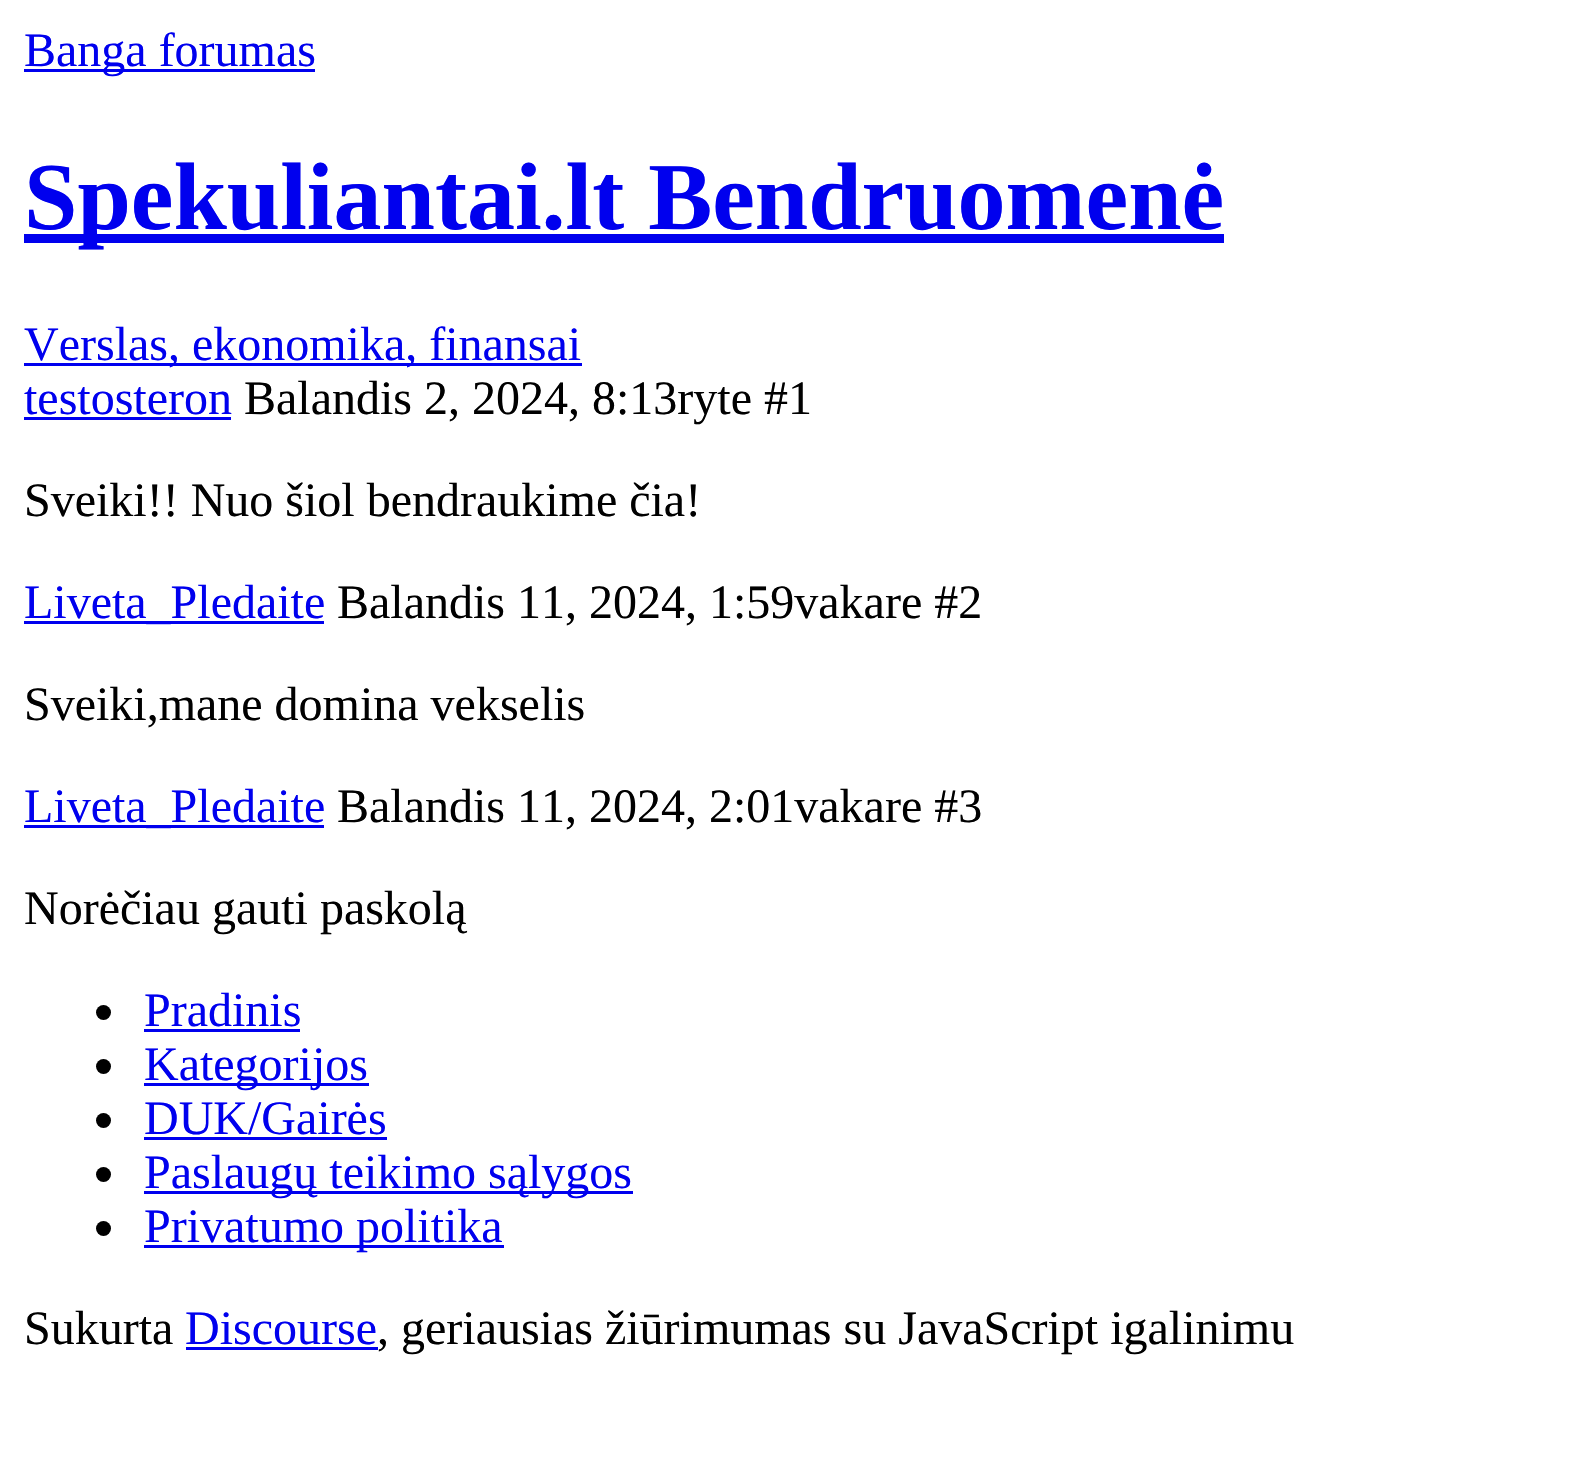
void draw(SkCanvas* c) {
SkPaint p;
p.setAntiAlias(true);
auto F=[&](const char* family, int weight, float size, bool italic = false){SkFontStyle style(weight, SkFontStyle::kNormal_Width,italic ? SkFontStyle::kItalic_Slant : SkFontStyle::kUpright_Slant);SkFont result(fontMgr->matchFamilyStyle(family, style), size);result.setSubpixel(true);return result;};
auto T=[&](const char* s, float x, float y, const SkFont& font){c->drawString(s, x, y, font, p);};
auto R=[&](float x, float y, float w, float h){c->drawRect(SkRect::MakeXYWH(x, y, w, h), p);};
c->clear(0xffffffff);
p.setColor(0xff0000ee);
R(24,69,291,3);
auto f1 = F("Liberation Serif",400,48);
T("Banga forumas",24,66,f1);
R(24,234,1200,9);
auto f2 = F("Liberation Serif",700,96);
T("Spekuliantai.lt Bendruomenė",24,229,f2);
R(24,363,558,3);
T("Verslas, ekonomika, finansai",24,360,f1);
T("testosteron",24,414,f1);
R(24,417,207,3);
p.setColor(0xff000000);
T("Balandis 2, 2024, 8:13ryte #1",244,414,f1);
T("Sveiki!! Nuo šiol bendraukime čia!",24,516,f1);
p.setColor(0xff0000ee);
R(24,621,300,3);
T("Liveta_Pledaite",24,618,f1);
p.setColor(0xff000000);
T("Balandis 11, 2024, 1:59vakare #2",337,618,f1);
T("Sveiki,mane domina vekselis",24,720,f1);
p.setColor(0xff0000ee);
R(24,825,300,3);
T("Liveta_Pledaite",24,822,f1);
p.setColor(0xff000000);
T("Balandis 11, 2024, 2:01vakare #3",337,822,f1);
T("Norėčiau gauti paskolą",24,924,f1);
c->drawCircle(103.5,1012.5,7.5,p);
p.setColor(0xff0000ee);
T("Pradinis",144,1026,f1);
R(144,1029,156,3);
p.setColor(0xff000000);
c->drawCircle(103.5,1066.5,7.5,p);
p.setColor(0xff0000ee);
R(144,1083,225,3);
T("Kategorijos",144,1080,f1);
p.setColor(0xff000000);
c->drawCircle(103.5,1120.5,7.5,p);
p.setColor(0xff0000ee);
T("DUK/Gairės",144,1134,f1);
R(144,1137,243,3);
p.setColor(0xff000000);
c->drawCircle(103.5,1174.5,7.5,p);
p.setColor(0xff0000ee);
R(144,1191,489,3);
T("Paslaugų teikimo sąlygos",144,1188,f1);
p.setColor(0xff000000);
c->drawCircle(103.5,1228.5,7.5,p);
p.setColor(0xff0000ee);
R(144,1245,360,3);
T("Privatumo politika",144,1242,f1);
p.setColor(0xff000000);
T("Sukurta",24,1344,f1);
p.setColor(0xff0000ee);
T("Discourse",185,1344,f1);
R(186,1347,192,3);
p.setColor(0xff000000);
T(", geriausias žiūrimumas su JavaScript igalinimu",377,1344,f1);
}
